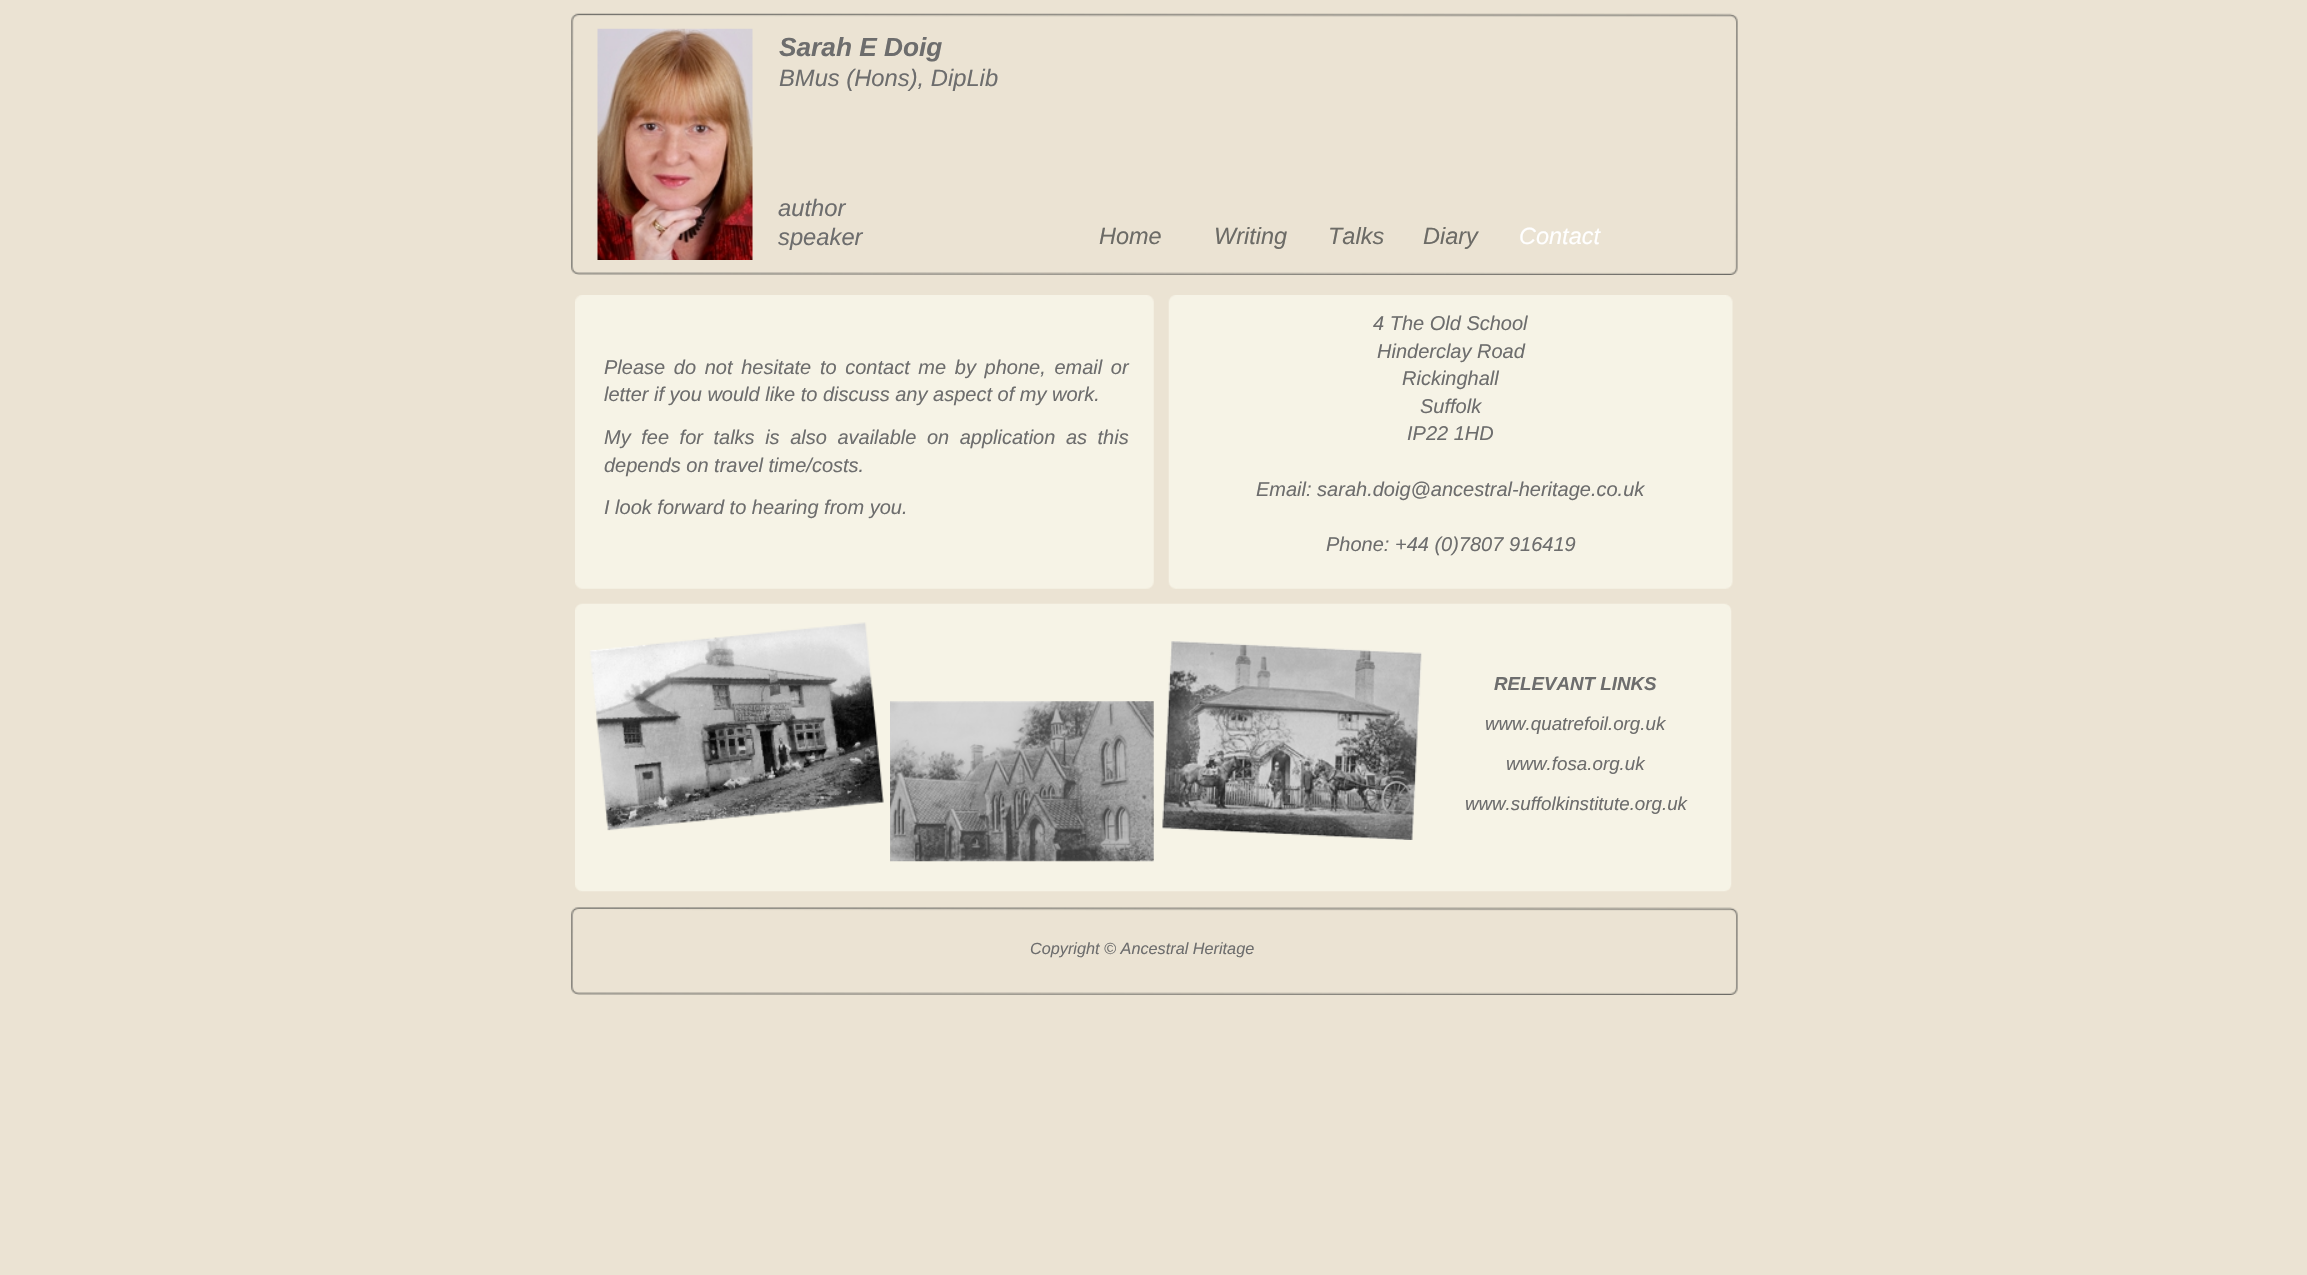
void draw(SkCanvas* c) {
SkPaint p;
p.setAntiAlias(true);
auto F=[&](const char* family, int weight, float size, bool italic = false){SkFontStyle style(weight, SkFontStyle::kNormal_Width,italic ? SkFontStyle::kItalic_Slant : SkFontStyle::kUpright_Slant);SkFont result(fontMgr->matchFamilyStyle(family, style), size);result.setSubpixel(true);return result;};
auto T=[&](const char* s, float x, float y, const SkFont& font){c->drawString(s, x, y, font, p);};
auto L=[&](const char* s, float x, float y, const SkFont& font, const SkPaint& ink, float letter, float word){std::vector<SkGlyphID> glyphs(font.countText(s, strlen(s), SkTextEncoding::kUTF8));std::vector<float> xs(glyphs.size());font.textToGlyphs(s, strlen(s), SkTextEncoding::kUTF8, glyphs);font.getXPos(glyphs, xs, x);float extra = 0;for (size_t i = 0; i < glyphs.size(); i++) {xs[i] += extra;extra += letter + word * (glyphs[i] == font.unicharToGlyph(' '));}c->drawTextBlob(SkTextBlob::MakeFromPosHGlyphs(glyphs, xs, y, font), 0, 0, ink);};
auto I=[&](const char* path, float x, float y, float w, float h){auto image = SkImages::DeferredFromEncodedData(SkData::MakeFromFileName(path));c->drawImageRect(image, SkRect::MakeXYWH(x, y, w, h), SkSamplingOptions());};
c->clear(0xffebe3d3);
I("1.png",571,13,1167,262);
I("2.png",597,28,156,232);
auto f1 = F("Liberation Sans",700,26.25,true);
p.setColor(0xff6d6d6d);
T("Sarah E Doig",779,56,f1);
auto f2 = F("Liberation Sans",400,23.75,true);
T("BMus (Hons), DipLib",779,86,f2);
T("author",778,216,f2);
T("speaker",778,245,f2);
auto f3 = F("Liberation Sans",400,23.5,true);
p.setColor(0xff6c6b66);
T("Home",1099,244,f3);
T("Writing",1214,244,f3);
T("Talks",1328,244,f3);
T("Diary",1423,244,f3);
p.setColor(0xffffffff);
T("Contact",1519,244,f3);
I("3.png",575,295,579,294);
I("4.png",1168,295,565,294);
auto f4 = F("Liberation Sans",400,20,true);
p.setColor(0xff6d6d6d);
L("Please do not hesitate to contact me by phone, email or",604,374,f4,p,0,3.1);
T("letter if you would like to discuss any aspect of my work.",604,401,f4);
L("My fee for talks is also available on application as this",604,444,f4,p,0,5);
T("depends on travel time/costs.",604,472,f4);
T("I look forward to hearing from you.",604,514,f4);
T("4 The Old School",1373,330,f4);
T("Hinderclay Road",1377,358,f4);
T("Rickinghall",1402,385,f4);
T("Suffolk",1420,413,f4);
T("IP22 1HD",1407,440,f4);
T("Email: sarah.doig@ancestral-heritage.co.uk",1256,496,f4);
T("Phone: +44 (0)7807 916419",1326,551,f4);
I("5.png",575,603,1157,289);
I("6.png",890,701,264,161);
I("7.png",1162,641,260,199);
auto f5 = F("Liberation Sans",700,18.75,true);
T("RELEVANT LINKS",1494,690,f5);
auto f6 = F("Liberation Sans",400,18.75,true);
T("www.quatrefoil.org.uk",1485,730,f6);
T("www.fosa.org.uk",1506,770,f6);
T("www.suffolkinstitute.org.uk",1465,810,f6);
I("8.png",571,907,1167,88);
auto f7 = F("Liberation Sans",400,16.25,true);
T("Copyright © Ancestral Heritage",1030,954,f7);
}
